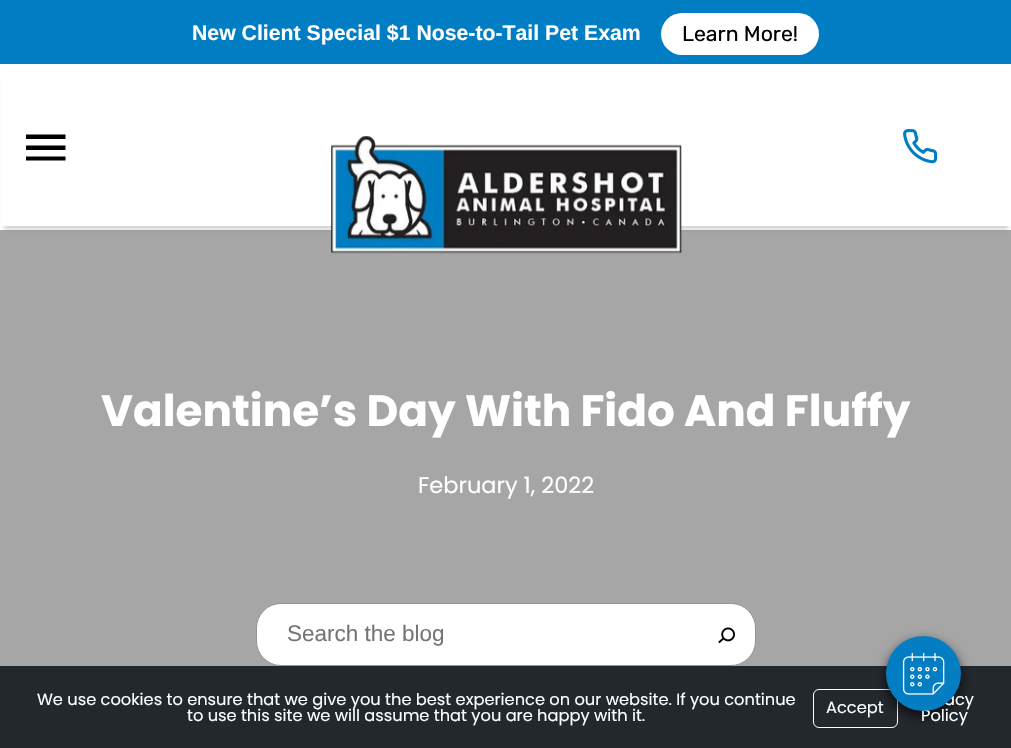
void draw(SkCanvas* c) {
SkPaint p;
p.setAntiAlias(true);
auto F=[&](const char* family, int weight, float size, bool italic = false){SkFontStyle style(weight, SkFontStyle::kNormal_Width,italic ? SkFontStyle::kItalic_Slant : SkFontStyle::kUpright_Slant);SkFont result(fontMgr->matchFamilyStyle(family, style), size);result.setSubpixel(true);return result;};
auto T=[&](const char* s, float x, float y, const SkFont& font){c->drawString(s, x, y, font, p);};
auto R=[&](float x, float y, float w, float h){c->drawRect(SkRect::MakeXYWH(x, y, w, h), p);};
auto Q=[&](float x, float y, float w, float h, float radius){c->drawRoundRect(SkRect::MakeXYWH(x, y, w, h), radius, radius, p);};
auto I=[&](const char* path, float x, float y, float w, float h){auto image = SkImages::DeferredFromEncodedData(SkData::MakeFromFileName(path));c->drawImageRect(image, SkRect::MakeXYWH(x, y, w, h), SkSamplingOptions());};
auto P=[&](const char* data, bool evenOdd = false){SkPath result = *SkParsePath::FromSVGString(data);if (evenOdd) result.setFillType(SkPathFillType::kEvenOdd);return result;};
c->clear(0xffffffff);
p.setColor(0xffa6a6a6);
R(0,230,1011,436);
p.setColor(0x30000000);
p.setMaskFilter(SkMaskFilter::MakeBlur(kNormal_SkBlurStyle, 2));
c->drawRect(SkRect::MakeXYWH(4,74,1004,155),p);
p.setMaskFilter(nullptr);
p.setColor(0xffffffff);
R(1,71,1010,155);
p.setColor(0xff000000);
c->drawPath(P("M26 160.5v-4h39.5v4zm0-10.5v-4.5h39.5v4.5zm0-15.5h39.5v4.5h-39.5z"),p);
p.setColor(0xff007dc3);
R(0,0,1011,64);
auto f1 = F("Liberation Sans",700,21.25);
p.setColor(0xffffffff);
T("New Client Special $1 Nose-to-Tail Pet Exam",192,40,f1);
Q(661,13,158,42,21);
auto f2 = F("Rubik",300,21.25);
p.setColor(0xff000000);
T("Learn More!",682,41,f2);
I("1.png",331,136,351,118);
I("2.png",903,129,35,35);
auto f3 = F("Poppins",700,43.75);
p.setColor(0xffffffff);
T("Valentine’s Day With Fido And Fluffy",101,426,f3);
auto f4 = F("Poppins",400,22.5);
T("February 1, 2022",418,493,f4);
c->drawRoundRect(SkRect::MakeXYWH(256.5,603.5,499,62),24.5,24.5,p);
p.setStroke(true);
p.setStrokeWidth(1);
p.setColor(0xff949494);
c->drawRoundRect(SkRect::MakeXYWH(256.5,603.5,499,62),24.5,24.5,p);
auto f5 = F("Liberation Sans",400,22.5);
p.setStroke(false);
p.setColor(0xff757575);
T("Search the blog",287,641,f5);
I("3.png",718,627,17,17);
p.setColor(0xff23282d);
R(0,666,1011,82);
p.setStroke(true);
p.setColor(0xffffffff);
c->drawRoundRect(SkRect::MakeXYWH(813.5,689.5,84,38),5.5,5.5,p);
p.setStroke(false);
p.setColor(0xb3000000);
p.setMaskFilter(SkMaskFilter::MakeBlur(kNormal_SkBlurStyle, 6));
c->drawRoundRect(SkRect::MakeXYWH(886,641,75,75),37.5,37.5,p);
p.setMaskFilter(nullptr);
auto f6 = F("Poppins",400,16.25);
p.setColor(0xffffffff);
T("acy",944,705,f6);
T("Policy",921,721,f6);
p.setColor(0xff047dc2);
c->drawCircle(923.5,673.5,37.5,p);
I("4.png",902,652,43,43);
p.setColor(0xffffffff);
T("We use cookies to ensure that we give you the best experience on our website. If you continue",37,705,f6);
T("to use this site we will assume that you are happy with it.",187,721,f6);
T("Accept",826,713,f6);
}
